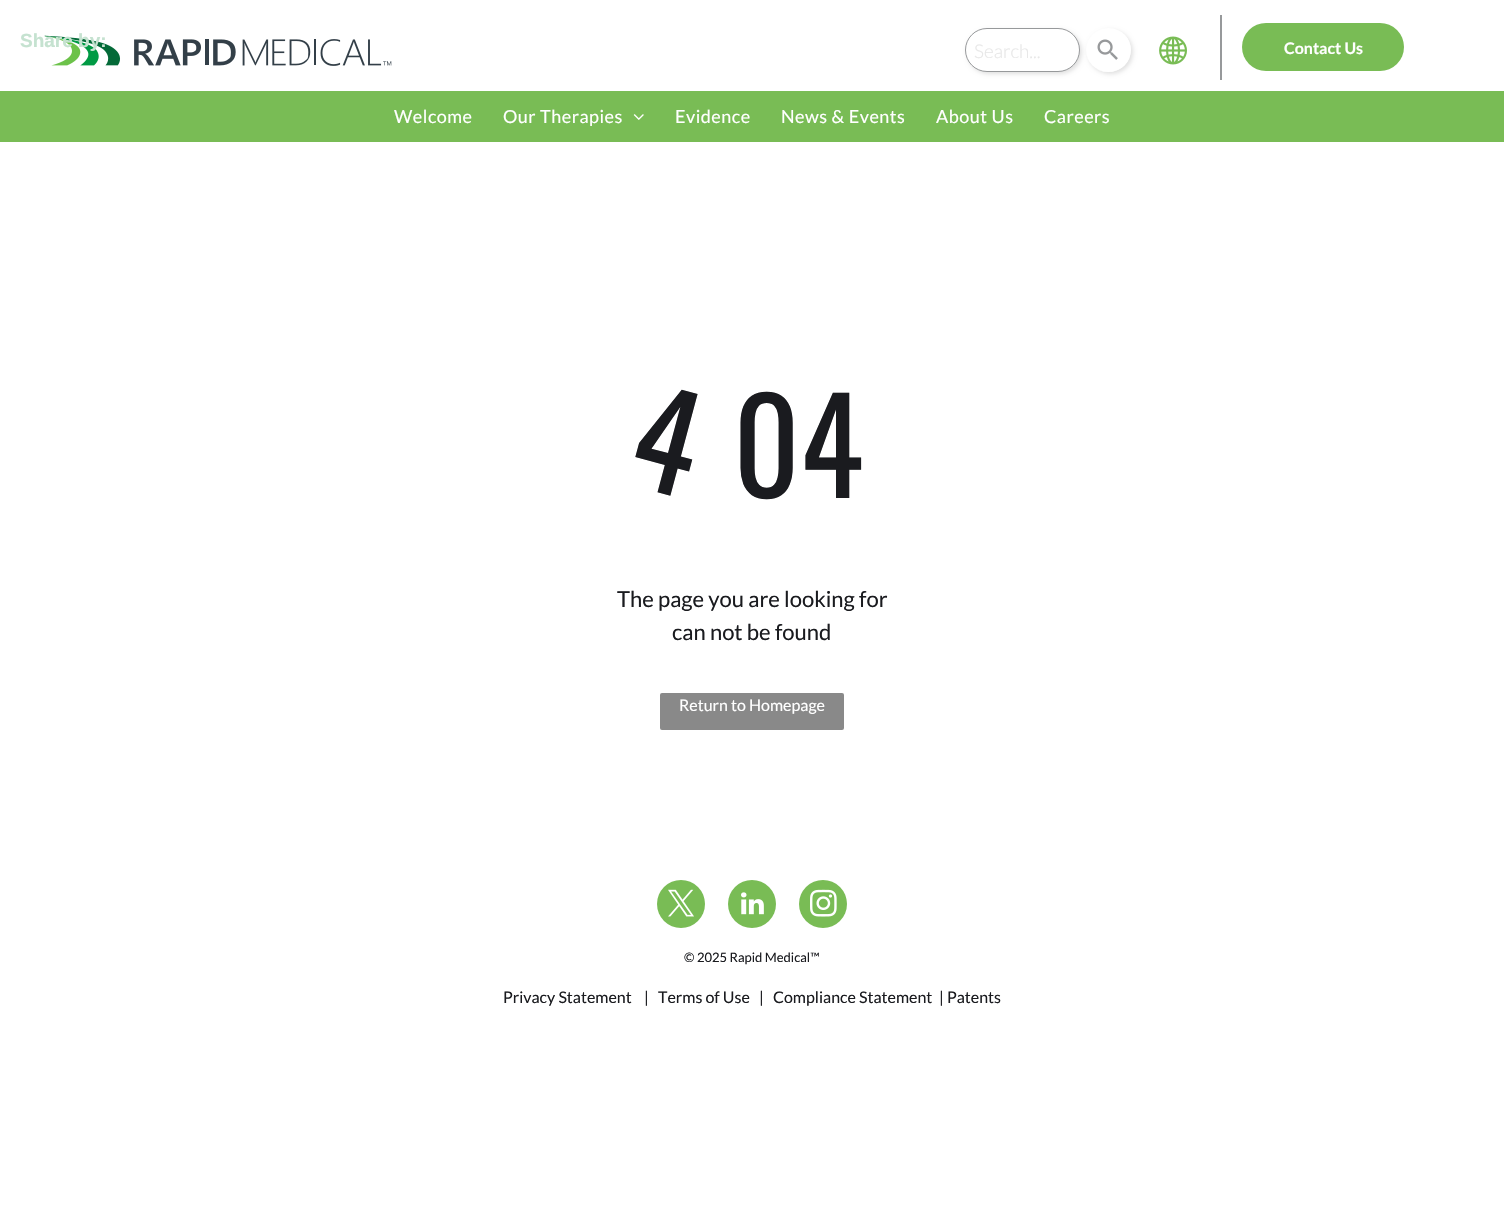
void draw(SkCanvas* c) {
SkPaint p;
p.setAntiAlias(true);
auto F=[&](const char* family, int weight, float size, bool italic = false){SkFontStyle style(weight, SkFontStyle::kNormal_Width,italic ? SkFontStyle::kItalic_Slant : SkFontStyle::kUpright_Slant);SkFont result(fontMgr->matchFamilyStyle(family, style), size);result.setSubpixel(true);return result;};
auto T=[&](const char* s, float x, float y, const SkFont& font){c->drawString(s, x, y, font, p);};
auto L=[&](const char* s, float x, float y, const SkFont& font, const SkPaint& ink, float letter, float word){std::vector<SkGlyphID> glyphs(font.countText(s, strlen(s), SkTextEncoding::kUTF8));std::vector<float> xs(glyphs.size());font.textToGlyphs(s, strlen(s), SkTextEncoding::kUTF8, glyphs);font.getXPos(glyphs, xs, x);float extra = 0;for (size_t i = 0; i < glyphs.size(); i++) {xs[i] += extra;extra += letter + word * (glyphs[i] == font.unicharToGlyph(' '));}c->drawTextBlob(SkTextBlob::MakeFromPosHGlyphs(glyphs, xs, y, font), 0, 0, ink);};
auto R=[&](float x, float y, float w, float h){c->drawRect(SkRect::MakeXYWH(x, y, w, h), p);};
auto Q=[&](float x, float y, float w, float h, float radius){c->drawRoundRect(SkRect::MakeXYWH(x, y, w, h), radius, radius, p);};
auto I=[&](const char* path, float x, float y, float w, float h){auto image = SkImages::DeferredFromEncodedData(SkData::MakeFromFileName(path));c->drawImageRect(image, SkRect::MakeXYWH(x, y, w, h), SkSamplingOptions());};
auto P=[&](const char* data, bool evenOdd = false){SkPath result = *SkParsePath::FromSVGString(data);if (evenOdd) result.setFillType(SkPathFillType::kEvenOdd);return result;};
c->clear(0xffffffff);
I("1.png",44,35,348,31);
auto f1 = F("Liberation Sans",700,19);
p.setColor(0xffc5e2d0);
T("Share by:",20,47,f1);
p.setColor(0x1f000000);
p.setMaskFilter(SkMaskFilter::MakeBlur(kNormal_SkBlurStyle, 2));
c->drawRoundRect(SkRect::MakeXYWH(967,30,115,44),22,22,p);
p.setMaskFilter(nullptr);
p.setColor(0xffffffff);
c->drawRoundRect(SkRect::MakeXYWH(965.5,28.5,114,43),21.5,21.5,p);
p.setStroke(true);
p.setStrokeWidth(1);
p.setColor(0xff97999b);
c->drawRoundRect(SkRect::MakeXYWH(965.5,28.5,114,43),21.5,21.5,p);
auto f2 = F("Lato",300,19);
p.setStroke(false);
p.setColor(0xffe7e7e7);
T("Search...",974,58,f2);
p.setColor(0x1f000000);
p.setMaskFilter(SkMaskFilter::MakeBlur(kNormal_SkBlurStyle, 2));
c->drawRoundRect(SkRect::MakeXYWH(1088,30,45,44),22,22,p);
p.setMaskFilter(nullptr);
p.setColor(0xffffffff);
Q(1086,28,45,44,22);
c->drawPath(P("M1124.5 34.5c8 8 8.5 22.5 0 31l-.5-.5c8-8 8-22 0-30z"),p);
c->drawPath(P("M1086 50c0 6.5 3 13 9 17.5c-4-3-7.5-7.5-9-13.5zm38.5 15.5c-6.5 6-16.5 8.5-24.5 5c-2-.5-3-2-5-3c9 6 21.5 5 29-2.5z",true),p);
I("2.png",1097,39,21,21);
p.setColor(0xff97999b);
R(1220,15,2,65);
I("3.png",1159,36,28,29);
p.setColor(0xff79bc55);
Q(1242,23,162,48,24);
auto f3 = F("Lato",700,16);
p.setColor(0xffffffff);
T("Contact Us",1284,54,f3);
p.setColor(0xff79bc55);
R(0,91,1504,51);
auto f4 = F("Lato",400,18);
p.setColor(0xffffffff);
L("Welcome",394,123,f4,p,.5,0);
L("Our Therapies",503,123,f4,p,.5,0);
I("4.png",633,114,11,6);
L("Evidence",675,123,f4,p,.5,0);
L("News & Events",781,123,f4,p,.5,0);
L("About Us",936,123,f4,p,.5,0);
L("Careers",1044,123,f4,p,.5,0);
auto f5 = F("Oswald",400,130);
p.setColor(0xff1a1b1f);
c->save();
c->rotate(15,623,483);
T("4",623,483,f5);
c->restore();
T("04",733,498,f5);
auto f6 = F("Lato",400,22);
T("The page you are looking for",617,607,f6);
T("can not be found",672,640,f6);
p.setColor(0xff898989);
Q(660,693,184,37,2);
auto f7 = F("Lato",400,16);
p.setColor(0xffffffff);
T("Return to Homepage",679,711,f7);
p.setColor(0xff79bc55);
c->drawCircle(681,904,24,p);
I("5.png",668,889,26,28);
c->drawCircle(752,904,24,p);
I("6.png",741,892,23,23);
c->drawCircle(823,904,24,p);
I("7.png",810,889,27,28);
auto f8 = F("Lato",400,13);
p.setColor(0xff1a1b1f);
T("© 2025 Rapid Medical™",684,962,f8);
T("Privacy Statement",503,1003,f7);
T("|",644,1003,f7);
T("Terms of Use",658,1003,f7);
T("|",759,1003,f7);
T("Compliance Statement",773,1003,f7);
T("| Patents",939,1003,f7);
}
